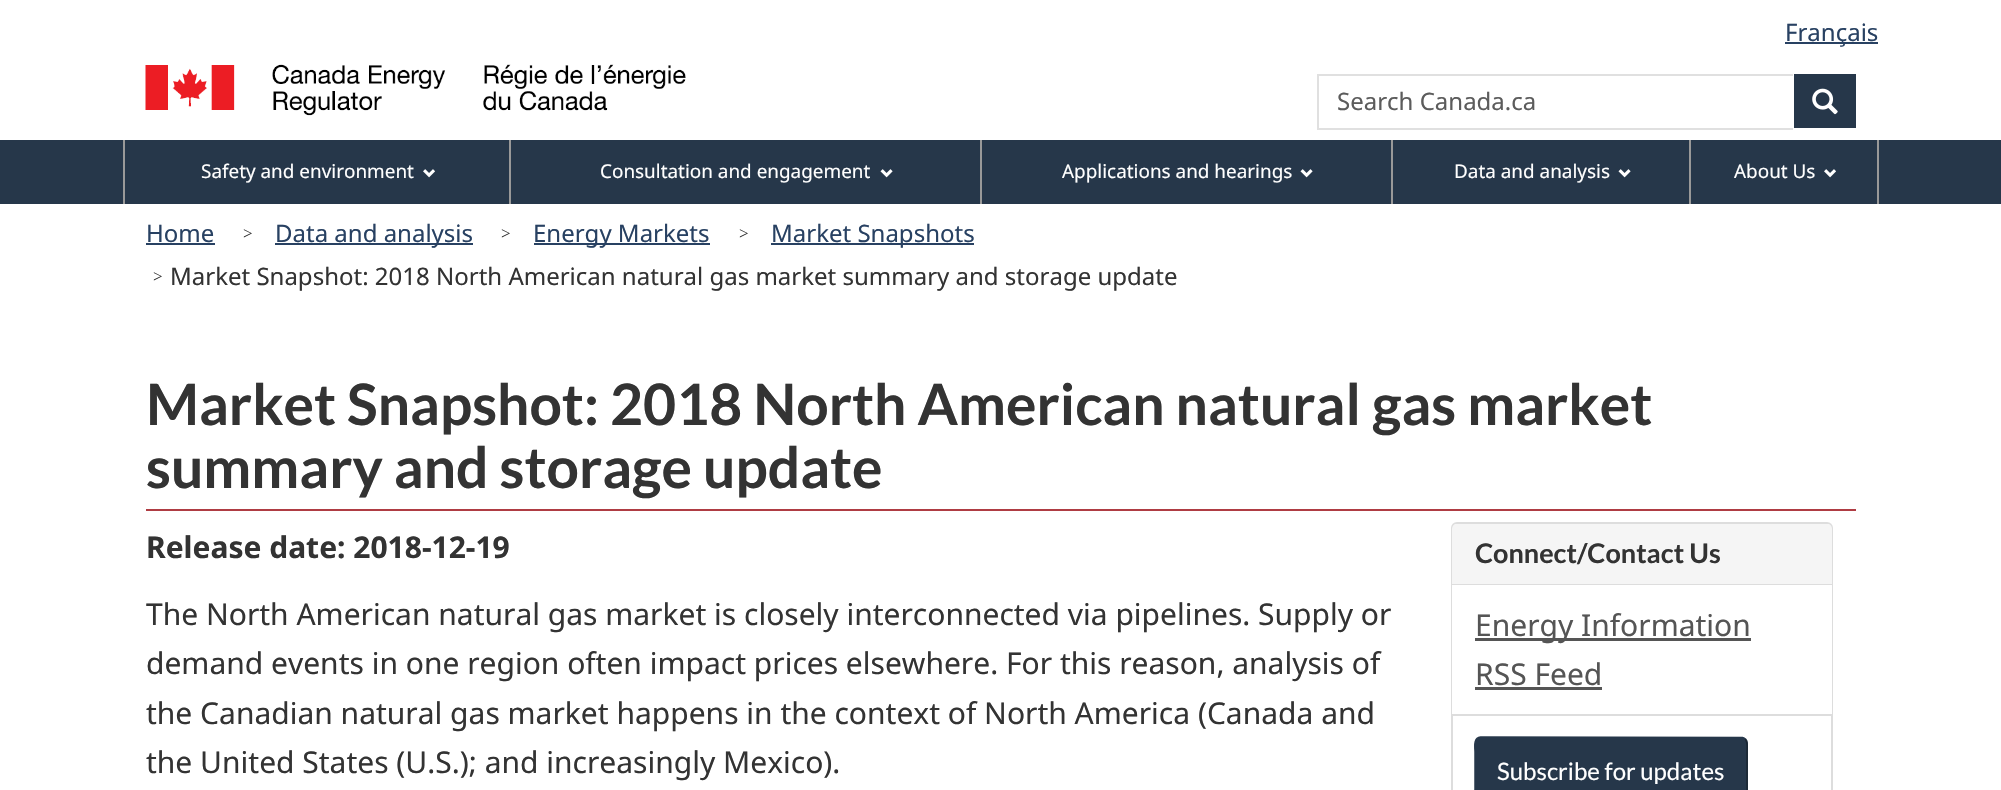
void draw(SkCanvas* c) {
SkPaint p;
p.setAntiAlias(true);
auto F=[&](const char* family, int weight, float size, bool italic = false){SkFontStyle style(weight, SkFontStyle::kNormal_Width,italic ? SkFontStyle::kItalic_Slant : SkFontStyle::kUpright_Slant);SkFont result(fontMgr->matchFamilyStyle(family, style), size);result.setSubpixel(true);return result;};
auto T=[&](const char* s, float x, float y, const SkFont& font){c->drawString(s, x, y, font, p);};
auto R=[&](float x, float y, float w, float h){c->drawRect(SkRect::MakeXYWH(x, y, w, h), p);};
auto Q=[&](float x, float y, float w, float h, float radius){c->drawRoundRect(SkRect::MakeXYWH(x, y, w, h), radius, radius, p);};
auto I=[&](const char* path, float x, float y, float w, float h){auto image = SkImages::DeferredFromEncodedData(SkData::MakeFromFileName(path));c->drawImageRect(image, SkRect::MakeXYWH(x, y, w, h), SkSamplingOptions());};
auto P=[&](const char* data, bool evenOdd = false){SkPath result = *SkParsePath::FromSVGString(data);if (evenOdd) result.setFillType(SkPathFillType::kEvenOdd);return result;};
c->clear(0xffffffff);
p.setColor(0xff284162);
R(1785,42,93,2);
auto f1 = F("Noto Sans",400,24);
T("Français",1785,41,f1);
I("1.png",145,64,541,52);
p.setColor(0xffe0e0e0);
R(1317,74,476,2);
R(1317,128,476,2);
R(1317,74,2,55);
p.setColor(0xff5c5c5c);
T("Search Canada.ca",1337,110,f1);
p.setColor(0xff26374a);
R(1794,74,62,54);
I("2.png",1812,88,26,27);
R(0,140,2001,64);
p.setColor(0xff999999);
R(123,140,2,64);
auto f2 = F("Noto Sans",400,18.9);
p.setColor(0xffffffff);
T("Safety and environment",201,178,f2);
I("3.png",423,169,12,9);
p.setColor(0xff999999);
R(509,140,2,64);
p.setColor(0xffffffff);
T("Consultation and engagement",600,178,f2);
I("4.png",880,169,13,9);
p.setColor(0xff999999);
R(980,140,2,64);
p.setColor(0xffffffff);
T("Applications and hearings",1062,178,f2);
I("4.png",1300,169,13,9);
p.setColor(0xff999999);
R(1391,140,2,64);
p.setColor(0xffffffff);
T("Data and analysis",1454,178,f2);
I("4.png",1618,169,13,9);
p.setColor(0xff999999);
R(1877,140,2,64);
R(1689,140,2,64);
p.setColor(0xffffffff);
T("About Us",1734,178,f2);
I("3.png",1824,169,12,9);
p.setColor(0xff284162);
T("Home",146,242,f1);
R(146,243,69,2);
auto f3 = F("Liberation Serif",400,17);
p.setColor(0xff333333);
T(">",243,239,f3);
p.setColor(0xff284162);
R(275,243,198,2);
T("Data and analysis",275,242,f1);
p.setColor(0xff333333);
T(">",501,239,f3);
p.setColor(0xff284162);
R(534,243,176,2);
T("Energy Markets",533,242,f1);
p.setColor(0xff333333);
T(">",739,239,f3);
p.setColor(0xff284162);
R(771,243,203,2);
T("Market Snapshots",771,242,f1);
p.setColor(0xff333333);
T(">",153,282,f3);
T("Market Snapshot: 2018 North American natural gas market summary and storage update",170,285,f1);
p.setColor(0xffaf3c43);
R(146,509,1710,2);
auto f4 = F("Lato",700,57);
p.setColor(0xff333333);
T("Market Snapshot: 2018 North American natural gas market",146,425,f4);
T("summary and storage update",146,488,f4);
auto f5 = F("Noto Sans",700,30);
T("Release date: 2018-12-19",146,558,f5);
p.setStroke(true);
p.setStrokeWidth(2);
p.setColor(0xffdddddd);
c->drawRoundRect(SkRect::MakeXYWH(1452,523,380,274),5,5,p);
p.setStroke(false);
p.setColor(0xfff5f5f5);
c->drawPath(P("M1457 524h370c3 0 5 2 5 5v56h-380v-56c0-3 2-5 5-5z"),p);
p.setColor(0xffdddddd);
R(1452,584,380,1);
auto f6 = F("Lato",700,27);
p.setColor(0xff333333);
T("Connect/Contact Us",1475,563,f6);
p.setColor(0xffffffff);
R(1452,585,380,129);
p.setColor(0xffdddddd);
R(1452,714,380,2);
p.setColor(0xff555555);
R(1475,638,276,3);
auto f7 = F("Noto Sans",400,30);
T("Energy Information",1475,636,f7);
T("RSS Feed",1475,685,f7);
R(1475,687,127,3);
p.setColor(0xff26374a);
Q(1475,737,273,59,6);
p.setStroke(true);
p.setStrokeWidth(1.5);
p.setColor(0xff192531);
c->drawPath(P("M1745 739c3 3 2 10 2 13v37c0 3.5 2 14-5.5 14h-262l-2.5-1.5"),p);
p.setColor(0xff26374a);
c->drawPath(P("M1477 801.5c-3-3-2-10-2-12.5v-37c0-4-2-14.5 5.5-15l262 .5l2.5 1.5"),p);
auto f8 = F("Lato",400,24);
p.setStroke(false);
p.setColor(0xffffffff);
T("Subscribe for updates",1497,780,f8);
p.setColor(0xff333333);
T("The North American natural gas market is closely interconnected via pipelines. Supply or",146,625,f7);
T("demand events in one region often impact prices elsewhere. For this reason, analysis of",146,674,f7);
T("the Canadian natural gas market happens in the context of North America (Canada and",146,724,f7);
T("the United States (U.S.); and increasingly Mexico).",146,773,f7);
}
